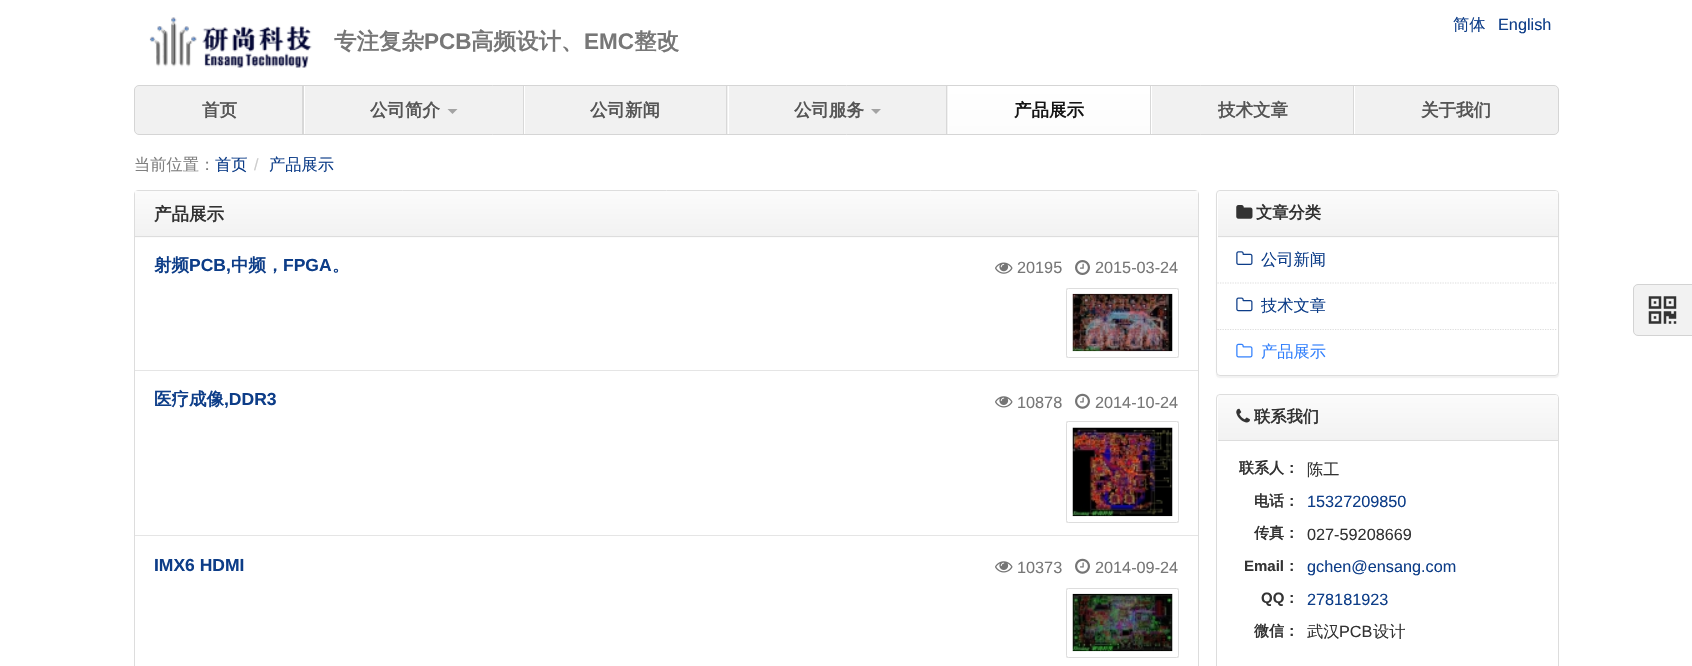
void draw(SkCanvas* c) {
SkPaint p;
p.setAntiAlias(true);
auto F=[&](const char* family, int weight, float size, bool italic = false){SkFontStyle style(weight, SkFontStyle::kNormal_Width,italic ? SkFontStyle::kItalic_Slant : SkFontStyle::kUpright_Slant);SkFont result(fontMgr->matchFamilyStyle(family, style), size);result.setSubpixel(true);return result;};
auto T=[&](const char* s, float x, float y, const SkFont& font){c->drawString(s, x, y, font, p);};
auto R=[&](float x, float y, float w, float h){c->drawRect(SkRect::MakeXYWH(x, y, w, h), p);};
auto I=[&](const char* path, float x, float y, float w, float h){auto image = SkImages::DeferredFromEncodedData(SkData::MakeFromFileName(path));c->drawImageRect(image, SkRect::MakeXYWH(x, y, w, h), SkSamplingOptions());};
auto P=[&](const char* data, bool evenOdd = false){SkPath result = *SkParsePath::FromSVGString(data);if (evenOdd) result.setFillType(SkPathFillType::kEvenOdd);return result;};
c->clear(0xffffffff);
auto f1 = F("WenQuanYi Zen Hei",500,16.25);
p.setColor(0xff0d3d88);
T("简体",1453,30,f1);
auto f2 = F("Liberation Sans",400,16.25);
T("English",1498,30,f2);
I("1.png",149,17,163,51);
auto f3 = F("WenQuanYi Zen Hei",700,22.5);
p.setColor(0xff777777);
T("专注复杂",334,49,f3);
auto f4 = F("Liberation Sans",700,22.5);
T("PCB",424,49,f4);
T("高频设计、",471,49,f3);
T("EMC",584,49,f4);
T("整改",634,49,f3);
p.setColor(0xfff1f1f1);
c->drawRoundRect(SkRect::MakeXYWH(134.5,85.5,1424,49),4.5,4.5,p);
p.setStroke(true);
p.setStrokeWidth(1);
p.setColor(0xffd5d5d5);
c->drawRoundRect(SkRect::MakeXYWH(134.5,85.5,1424,49),4.5,4.5,p);
p.setStroke(false);
p.setColor(0xffd8d8d8);
R(302,86,2,48);
auto f5 = F("WenQuanYi Zen Hei",700,17.5);
p.setColor(0xff555555);
T("首页",202,116,f5);
p.setColor(0xffd8d8d8);
R(523,86,1,48);
p.setColor(0xffffffff);
R(304,86,1,48);
p.setColor(0xff555555);
T("公司简介",370,116,f5);
p.setColor(0xffa3a3a3);
c->drawPath(P("M447.5 109h10l-5 5z"),p);
p.setColor(0xffd8d8d8);
R(726,86,1,48);
p.setColor(0xffffffff);
R(524,86,1,48);
p.setColor(0xff555555);
T("公司新闻",590,116,f5);
p.setColor(0xffd8d8d8);
R(946,86,1,48);
p.setColor(0xffffffff);
R(728,86,1,48);
p.setColor(0xff555555);
T("公司服务",794,116,f5);
p.setColor(0xffa3a3a3);
c->drawPath(P("M871 109h10l-5 5z"),p);
{
const SkColor colors[] = {0xffffffff,0xfffcfcfc};
const float stops[] = {0,1};
const SkPoint ends[] = {{1049,86}, {1049,134}};
p.setShader(SkGradientShader::MakeLinear(ends, colors, stops, 2, SkTileMode::kClamp));
p.setAlpha(255);
}
R(949,86,201,48);
p.setShader(nullptr);
p.setColor(0xffd8d8d8);
R(1150,86,1,48);
p.setColor(0xffffffff);
R(948,86,1,48);
p.setColor(0xff151515);
T("产品展示",1014,116,f5);
p.setColor(0xffd8d8d8);
R(1353,86,1,48);
p.setColor(0xffffffff);
R(1151,86,1,48);
p.setColor(0xff555555);
T("技术文章",1218,116,f5);
p.setColor(0xffffffff);
R(1354,86,1,48);
p.setColor(0xff555555);
T("关于我们",1421,116,f5);
p.setColor(0xff808080);
T("当前位置：",134,170,f1);
p.setColor(0xff0d3d88);
T("首页",215,170,f1);
p.setColor(0xffcccccc);
T("/",254,170,f2);
p.setColor(0xff0d3d88);
T("产品展示",269,170,f1);
p.setStroke(true);
p.setColor(0xffdddddd);
c->drawRoundRect(SkRect::MakeXYWH(134.5,190.5,1064,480),3.5,3.5,p);
p.setStroke(false);
{
const SkColor colors[] = {0xfffbfbfb,0xfff2f2f2};
const float stops[] = {0,1};
const SkPoint ends[] = {{666,191}, {666,236}};
p.setShader(SkGradientShader::MakeLinear(ends, colors, stops, 2, SkTileMode::kClamp));
p.setAlpha(255);
}
R(135,191,1063,45);
{
const SkColor colors[] = {0xfffbfbfb,0xfff2f2f2};
const float stops[] = {0,1};
const SkPoint ends[] = {{666,236}, {666,281}};
p.setShader(SkGradientShader::MakeLinear(ends, colors, stops, 2, SkTileMode::kClamp));
p.setAlpha(255);
}
R(135,237,1063,1);
p.setShader(nullptr);
p.setColor(0xffdddddd);
R(135,236,1063,1);
p.setColor(0xff333333);
T("产品展示",154,220,f5);
p.setColor(0xffe5e5e5);
R(135,370,1063,1);
p.setColor(0xff0d3d88);
T("射频",154,271,f5);
auto f6 = F("Liberation Sans",700,17.5);
T("PCB,",189,271,f6);
T("中频，",231,271,f5);
T("FPGA",283,271,f6);
T("。",332,271,f5);
I("2.png",995,262,18,12);
p.setColor(0xff777777);
T("20195",1017,273,f2);
I("3.png",1075,260,15,15);
T("2015-03-24",1095,273,f2);
p.setColor(0xfff1f1f1);
R(1066,288,113,70);
p.setColor(0xffffffff);
c->drawRoundRect(SkRect::MakeXYWH(1066.5,288.5,112,69),2,2,p);
p.setStroke(true);
p.setColor(0xffdddddd);
c->drawRoundRect(SkRect::MakeXYWH(1066.5,288.5,112,69),2,2,p);
I("4.png",1072,293,101,59);
p.setStroke(false);
p.setColor(0xffe5e5e5);
R(135,535,1063,1);
p.setColor(0xff0d3d88);
T("医疗成像",154,405,f5);
T(",DDR3",224,405,f6);
I("5.png",995,396,18,12);
p.setColor(0xff777777);
T("10878",1017,408,f2);
I("6.png",1075,393,15,16);
T("2014-10-24",1095,408,f2);
p.setColor(0xfff1f1f1);
R(1066,421,113,102);
p.setColor(0xffffffff);
c->drawRoundRect(SkRect::MakeXYWH(1066.5,421.5,112,101),2,2,p);
p.setStroke(true);
p.setColor(0xffdddddd);
c->drawRoundRect(SkRect::MakeXYWH(1066.5,421.5,112,101),2,2,p);
I("7.png",1072,427,101,90);
p.setStroke(false);
p.setColor(0xff0d3d88);
T("IMX6 HDMI",154,571,f6);
I("5.png",995,561,18,12);
p.setColor(0xff777777);
T("10373",1017,573,f2);
I("6.png",1075,558,15,16);
T("2014-09-24",1095,573,f2);
p.setColor(0xfff1f1f1);
R(1066,588,113,70);
p.setColor(0xffffffff);
c->drawRoundRect(SkRect::MakeXYWH(1066.5,588.5,112,69),2,2,p);
p.setStroke(true);
p.setColor(0xffdddddd);
c->drawRoundRect(SkRect::MakeXYWH(1066.5,588.5,112,69),2,2,p);
I("8.png",1072,593,101,59);
c->save();
c->clipPath(P("M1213 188h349v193h-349zm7 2h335c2 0 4 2 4 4v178c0 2-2 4-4 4h-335c-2 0-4-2-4-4v-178c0-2 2-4 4-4z",true),true);
p.setStroke(false);
p.setColor(0x0d000000);
p.setMaskFilter(SkMaskFilter::MakeBlur(kNormal_SkBlurStyle, .5));
c->drawRoundRect(SkRect::MakeXYWH(1216,191,343,187),4,4,p);
p.setMaskFilter(nullptr);
c->restore();
p.setStroke(true);
p.setColor(0xffdddddd);
c->drawRoundRect(SkRect::MakeXYWH(1216.5,190.5,342,185),3.5,3.5,p);
p.setStroke(false);
{
const SkColor colors[] = {0xfffbfbfb,0xfff2f2f2};
const float stops[] = {0,1};
const SkPoint ends[] = {{1388,191}, {1388,236}};
p.setShader(SkGradientShader::MakeLinear(ends, colors, stops, 2, SkTileMode::kClamp));
p.setAlpha(255);
}
c->drawPath(P("M1220.5 191h335c1.5 0 2.5 1 2.5 2.5v42.5h-340v-42.5c0-1.5 1-2.5 2.5-2.5z"),p);
{
const SkColor colors[] = {0xfffbfbfb,0xfff2f2f2};
const float stops[] = {0,1};
const SkPoint ends[] = {{1388,236}, {1388,281}};
p.setShader(SkGradientShader::MakeLinear(ends, colors, stops, 2, SkTileMode::kClamp));
p.setAlpha(255);
}
R(1218,237,340,1);
p.setShader(nullptr);
p.setColor(0xffdddddd);
R(1218,236,340,1);
I("9.png",1236,205,17,14);
auto f7 = F("WenQuanYi Zen Hei",700,16.25);
p.setColor(0xff333333);
T("文章分类",1256,218,f7);
p.setStroke(true);
p.setStrokeWidth(1.2);
p.setColor(0xffdddddd);
p.setPathEffect(SkDashPathEffect::Make({{1.25f,1.25f}}, 0));
c->drawPath(P("M1217.5 283h340"),p);
p.setPathEffect(nullptr);
I("10.png",1236,251,17,14);
p.setStroke(false);
p.setColor(0xff0d3d88);
T("公司新闻",1261,265,f1);
p.setStroke(true);
p.setColor(0xffdddddd);
p.setPathEffect(SkDashPathEffect::Make({{1.25f,1.25f}}, 0));
c->drawPath(P("M1217.5 329.5h340"),p);
p.setPathEffect(nullptr);
I("11.png",1236,297,17,15);
p.setStroke(false);
p.setColor(0xff0d3d88);
T("技术文章",1261,311,f1);
I("12.png",1236,343,17,15);
p.setColor(0xff3280fc);
T("产品展示",1261,357,f1);
p.setStroke(true);
p.setStrokeWidth(1);
p.setColor(0xffdddddd);
c->drawRoundRect(SkRect::MakeXYWH(1216.5,394.5,342,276),3.5,3.5,p);
p.setStroke(false);
{
const SkColor colors[] = {0xfffbfbfb,0xfff2f2f2};
const float stops[] = {0,1};
const SkPoint ends[] = {{1388,395}, {1388,440}};
p.setShader(SkGradientShader::MakeLinear(ends, colors, stops, 2, SkTileMode::kClamp));
p.setAlpha(255);
}
c->drawPath(P("M1220.5 395h335c1.5 0 2.5 1 2.5 2.5v42.5h-340v-42.5c0-1.5 1-2.5 2.5-2.5z"),p);
p.setShader(nullptr);
p.setColor(0xffdddddd);
R(1218,440,340,1);
I("13.png",1236,408,14,15);
p.setColor(0xff333333);
T("联系我们",1254,422,f7);
auto f8 = F("WenQuanYi Zen Hei",700,15);
T("联系人：",1239,473,f8);
T("陈工",1307,475,f1);
T("电话：",1254,506,f8);
p.setColor(0xff0d3d88);
T("15327209850",1307,507,f2);
p.setColor(0xff333333);
T("传真：",1254,538,f8);
T("027-59208669",1307,540,f2);
auto f9 = F("Liberation Sans",700,15);
T("Email",1244,571,f9);
T("：",1284,571,f8);
p.setColor(0xff0d3d88);
T("gchen@ensang.com",1307,572,f2);
p.setColor(0xff333333);
T("QQ",1261,603,f9);
T("：",1284,603,f8);
p.setColor(0xff0d3d88);
T("278181923",1307,605,f2);
p.setColor(0xff333333);
T("微信：",1254,636,f8);
T("武汉",1307,637,f1);
T("PCB",1339,637,f2);
T("设计",1373,637,f1);
p.setColor(0xfff2f2f2);
c->drawPath(P("M1638 284.5h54.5v51h-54.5c-2.5 0-4.5-2-4.5-4.5v-42c0-2.5 2-4.5 4.5-4.5z"),p);
p.setStroke(true);
p.setColor(0xffd3d3d3);
c->drawPath(P("M1638 284.5h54.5v51h-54.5c-2.5 0-4.5-2-4.5-4.5v-42c0-2.5 2-4.5 4.5-4.5z"),p);
I("14.png",1648,296,29,28);
}
